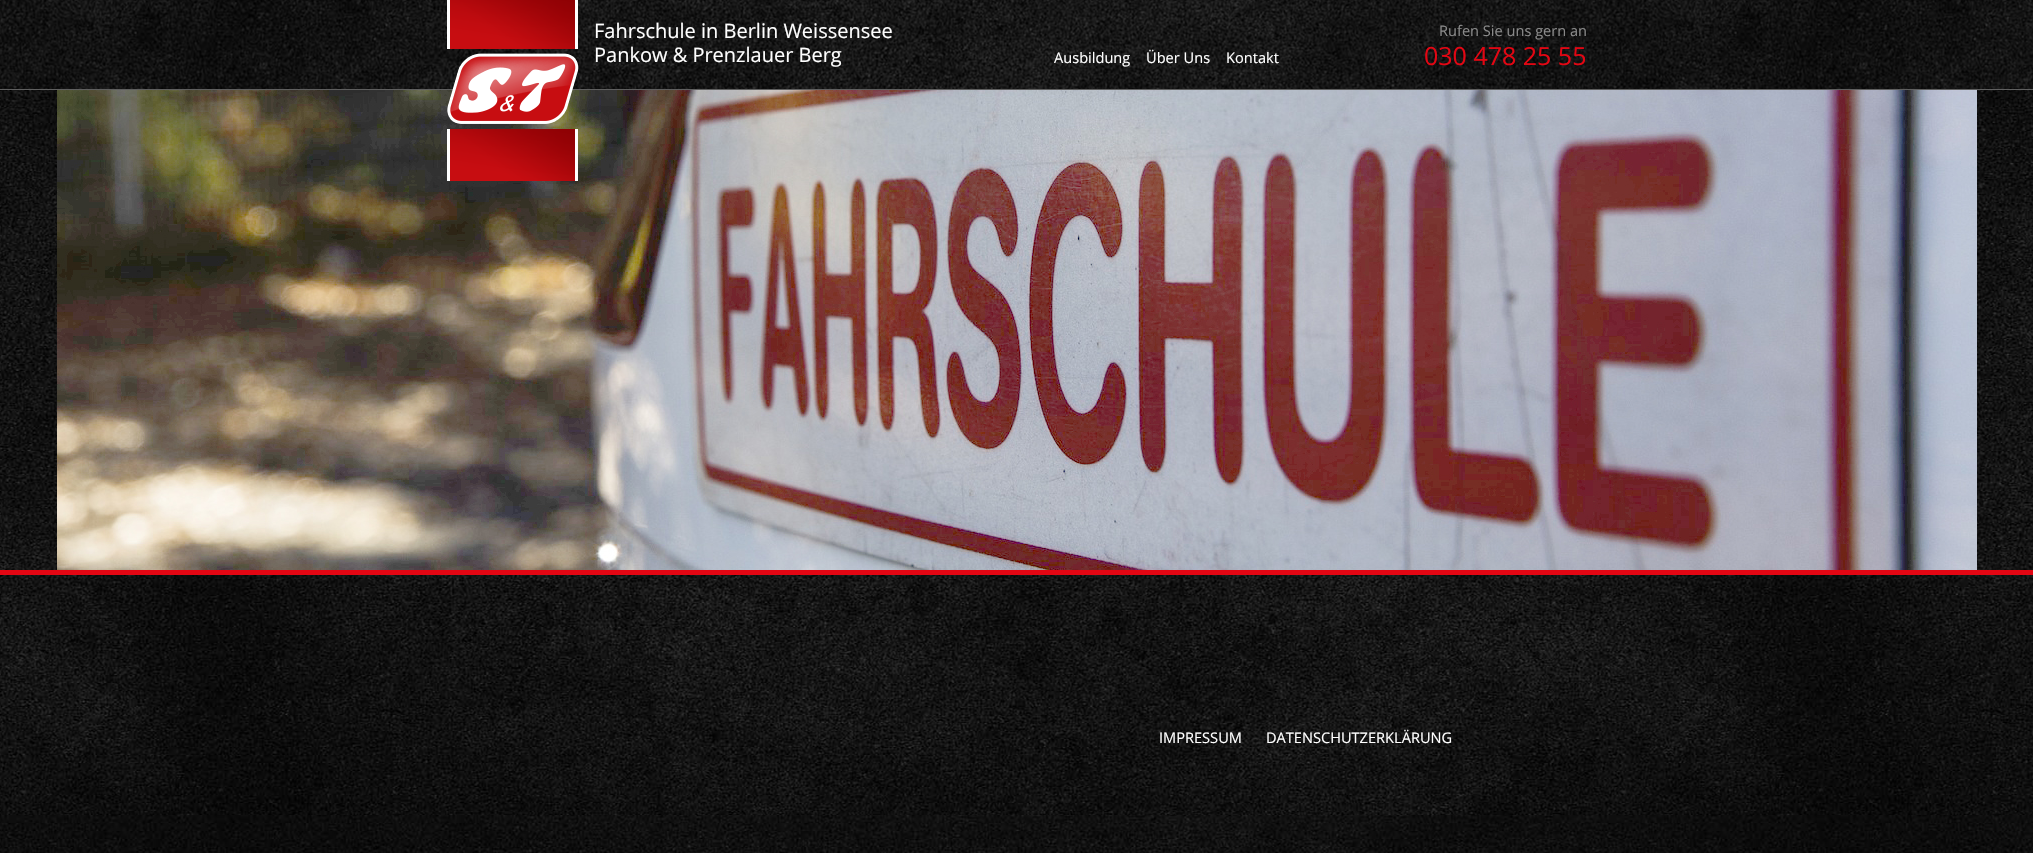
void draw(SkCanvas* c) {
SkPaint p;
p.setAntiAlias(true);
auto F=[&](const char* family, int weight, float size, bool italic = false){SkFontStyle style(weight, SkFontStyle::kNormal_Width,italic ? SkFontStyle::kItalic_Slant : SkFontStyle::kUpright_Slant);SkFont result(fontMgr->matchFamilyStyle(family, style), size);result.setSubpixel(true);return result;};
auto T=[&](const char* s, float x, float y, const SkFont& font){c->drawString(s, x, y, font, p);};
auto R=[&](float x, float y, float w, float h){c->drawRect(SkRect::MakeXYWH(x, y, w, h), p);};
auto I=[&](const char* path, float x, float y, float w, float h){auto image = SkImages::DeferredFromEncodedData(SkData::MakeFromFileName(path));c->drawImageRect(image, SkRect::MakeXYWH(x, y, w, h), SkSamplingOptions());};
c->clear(0xffffffff);
I("1.png",0,90,2033,763);
I("2.png",0,0,2033,89);
p.setColor(0xff5f5f5f);
R(0,89,2033,1);
I("4.png",57,90,1920,480);
I("3.png",447,0,132,181);
auto f1 = F("Open Sans",400,20);
p.setColor(0xffffffff);
T("Fahrschule in Berlin Weissensee",594,38,f1);
T("Pankow & Prenzlauer Berg",594,62,f1);
auto f2 = F("Open Sans",400,14.6);
T("Ausbildung",1054,63,f2);
T("Über Uns",1146,63,f2);
T("Kontakt",1226,63,f2);
p.setColor(0xff898989);
T("Rufen Sie uns gern an",1439,36,f2);
auto f3 = F("Open Sans",400,25);
p.setColor(0xffe30613);
T("030 478 25 55",1424,65,f3);
R(0,570,2033,5);
p.setColor(0xffffffff);
T("IMPRESSUM",1159,743,f2);
T("DATENSCHUTZERKLÄRUNG",1266,743,f2);
}
